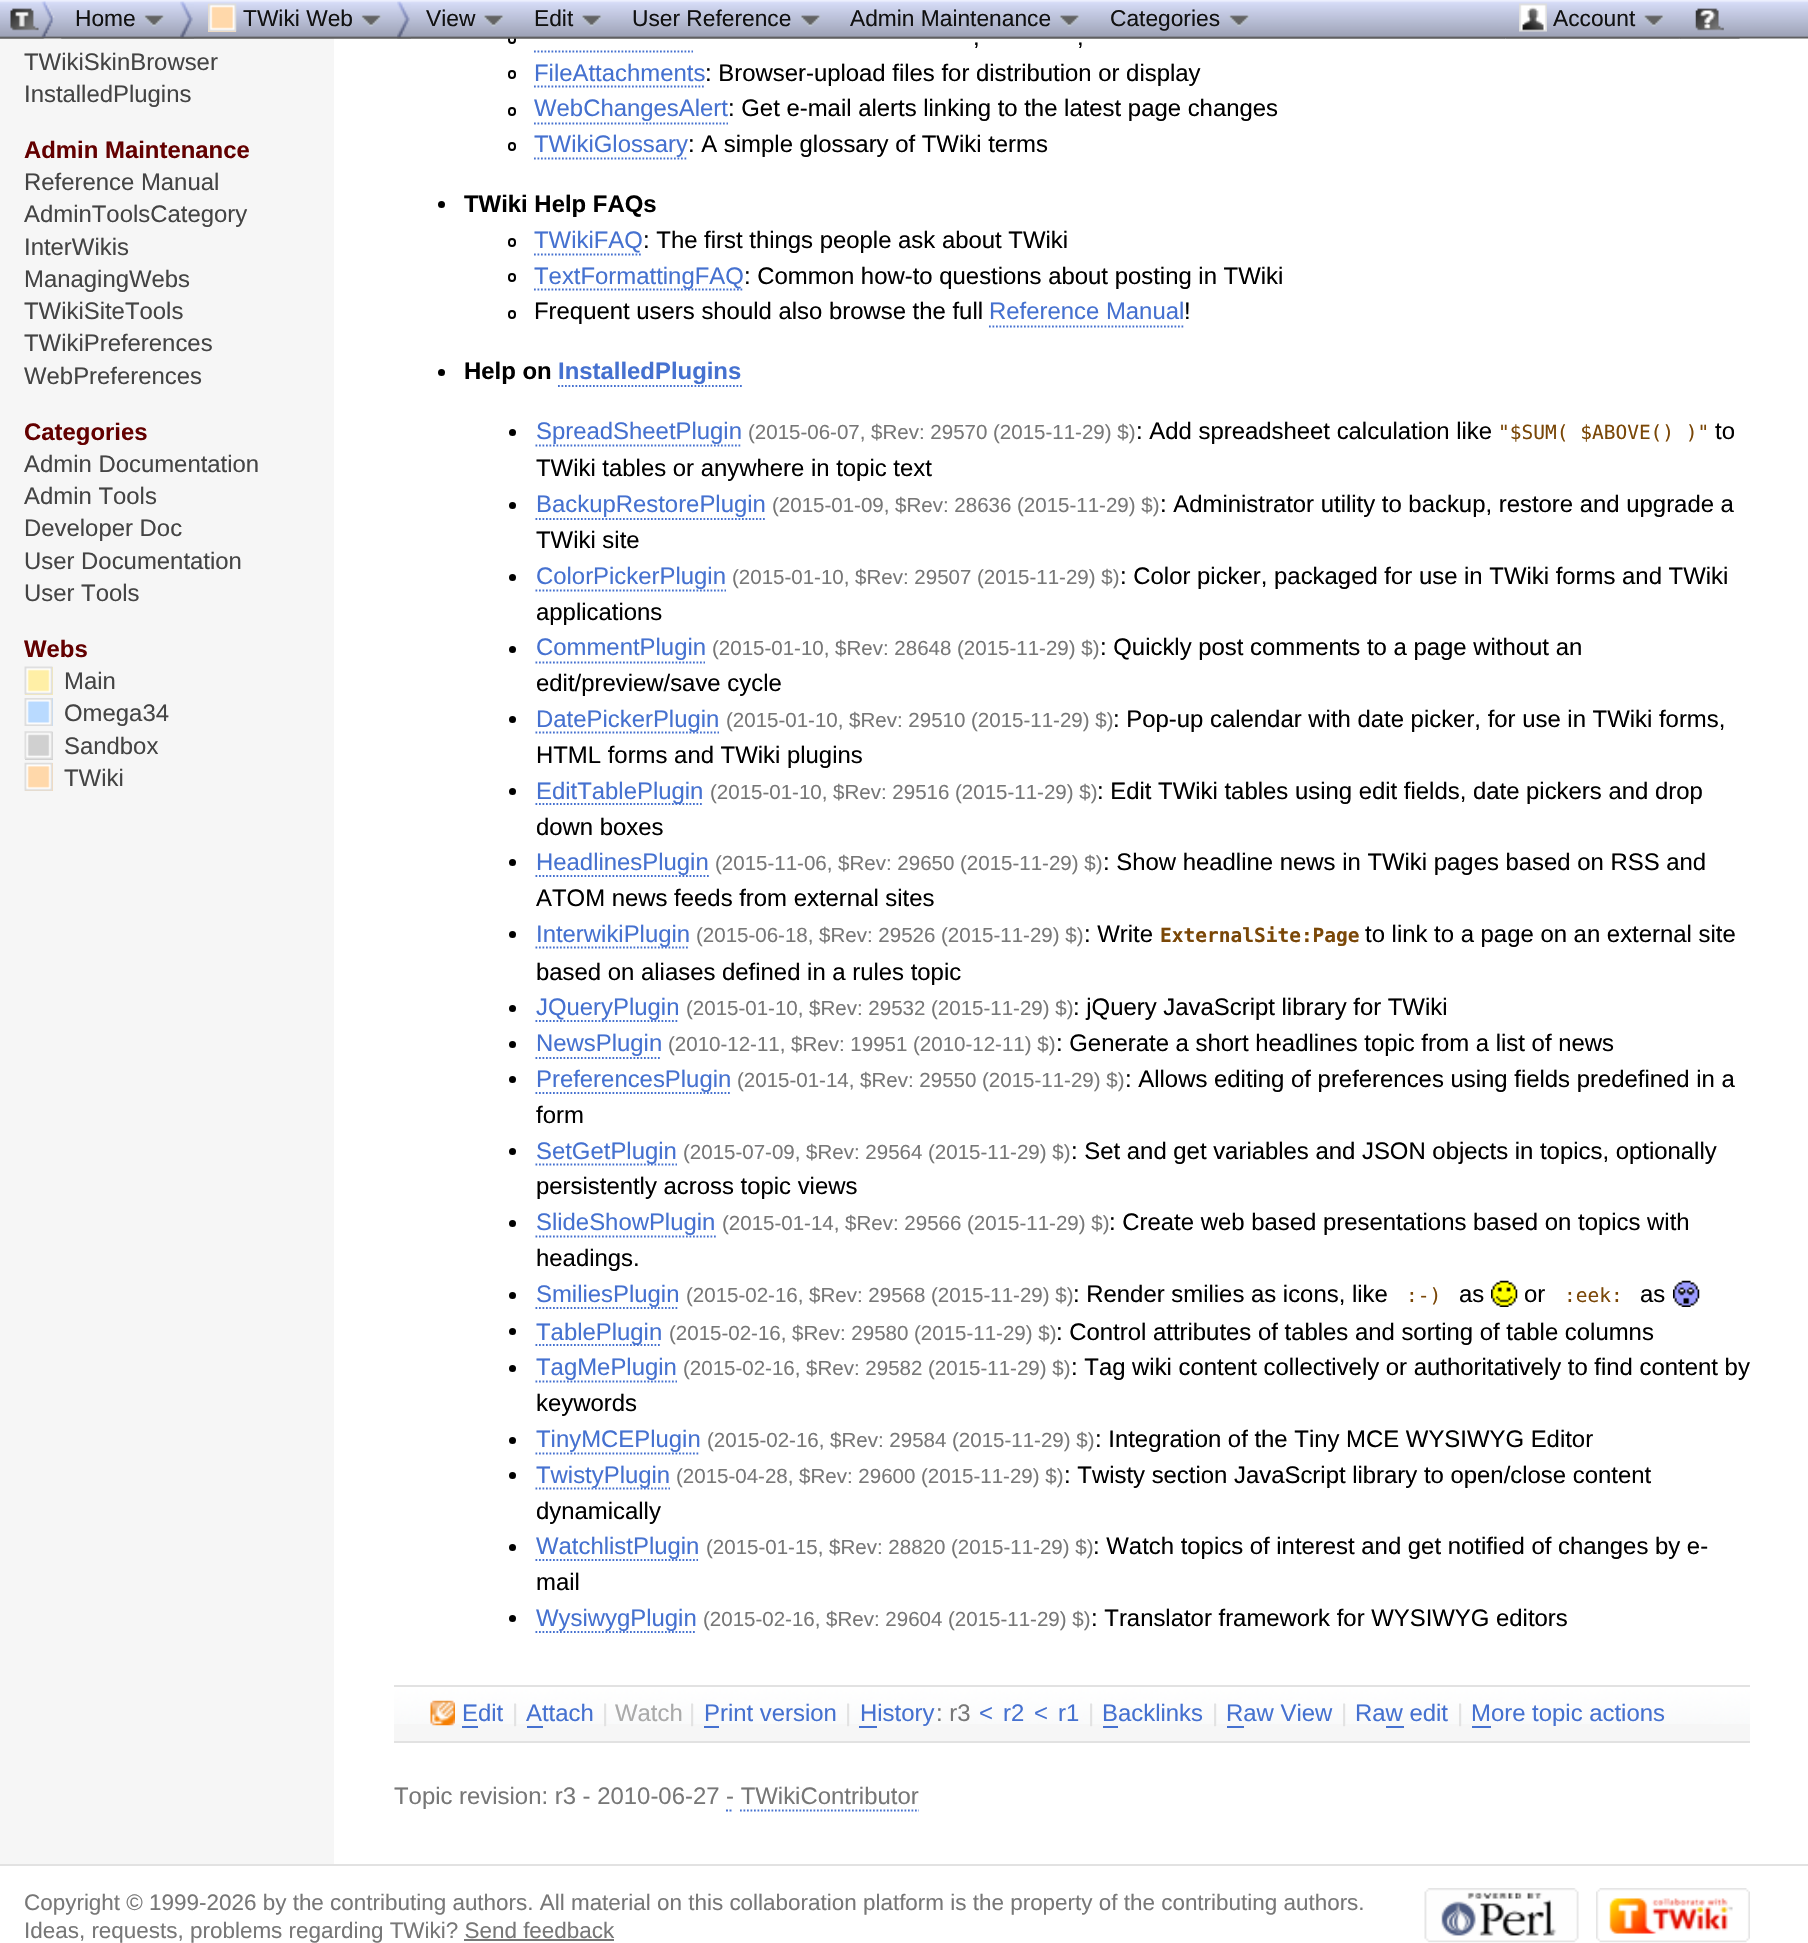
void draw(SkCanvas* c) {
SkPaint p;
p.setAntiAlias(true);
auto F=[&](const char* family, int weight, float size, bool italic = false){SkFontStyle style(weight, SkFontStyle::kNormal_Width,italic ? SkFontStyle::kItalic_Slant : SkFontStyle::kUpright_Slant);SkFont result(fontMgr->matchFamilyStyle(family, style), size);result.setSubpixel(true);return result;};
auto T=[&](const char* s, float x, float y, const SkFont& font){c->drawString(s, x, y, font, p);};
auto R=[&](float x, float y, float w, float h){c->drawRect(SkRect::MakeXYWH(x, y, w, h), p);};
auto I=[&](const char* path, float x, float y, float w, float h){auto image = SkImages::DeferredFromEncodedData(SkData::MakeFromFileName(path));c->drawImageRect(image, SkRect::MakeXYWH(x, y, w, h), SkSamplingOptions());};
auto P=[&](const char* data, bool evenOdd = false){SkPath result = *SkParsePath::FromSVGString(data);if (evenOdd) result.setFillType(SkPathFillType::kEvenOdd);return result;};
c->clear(0xffffffff);
p.setColor(0xfff6f6f6);
R(0,38,334,1826);
p.setStroke(true);
p.setStrokeWidth(2);
p.setColor(0xff000000);
c->drawRoundRect(SkRect::MakeXYWH(509,36,6,7),3,3,p);
I("1.png",0,0,1808,39);
I("2.png",0,1,55,38);
I("3.png",61,38,1444,1);
auto f1 = F("Liberation Sans",400,22.75);
p.setStroke(false);
p.setColor(0xff111111);
T("Home",75,26,f1);
I("4.png",143,15,22,12);
I("5.png",180,1,14,38);
p.setColor(0xffffd8aa);
R(208,4,28,28);
I("6.png",208,3,29,29);
p.setColor(0xff111111);
T("TWiki Web",243,26,f1);
I("7.png",360,15,22,12);
I("8.png",397,1,14,38);
T("View",426,26,f1);
I("9.png",483,15,21,12);
T("Edit",534,26,f1);
I("10.png",581,15,21,12);
T("User Reference",632,26,f1);
I("11.png",800,15,21,12);
T("Admin Maintenance",850,26,f1);
I("12.png",1059,15,21,12);
T("Categories",1110,26,f1);
I("13.png",1228,15,22,12);
I("14.png",1504,38,177,1);
I("15.png",1519,3,28,29);
T("Account",1553,26,f1);
I("16.png",1643,15,22,12);
I("17.png",1680,38,60,1);
I("18.png",1695,8,29,23);
auto f2 = F("Liberation Sans",400,23.9);
p.setColor(0xff444444);
T("TWikiSkinBrowser",24,70,f2);
T("InstalledPlugins",24,102,f2);
auto f3 = F("Liberation Sans",700,23.9);
p.setColor(0xff630000);
T("Admin Maintenance",24,158,f3);
p.setColor(0xff444444);
T("Reference Manual",24,190,f2);
T("AdminToolsCategory",24,222,f2);
T("InterWikis",24,255,f2);
T("ManagingWebs",24,287,f2);
T("TWikiSiteTools",24,319,f2);
T("TWikiPreferences",24,351,f2);
T("WebPreferences",24,384,f2);
p.setColor(0xff630000);
T("Categories",24,440,f3);
p.setColor(0xff444444);
T("Admin Documentation",24,472,f2);
T("Admin Tools",24,504,f2);
T("Developer Doc",24,536,f2);
T("User Documentation",24,569,f2);
T("User Tools",24,601,f2);
p.setColor(0xff630000);
T("Webs",24,657,f3);
p.setColor(0xffffefa6);
R(25,667,28,28);
I("19.png",24,666,29,29);
p.setColor(0xff444444);
T("Main",64,689,f2);
p.setColor(0xffb9daff);
R(27,698,26,28);
I("20.png",24,698,29,28);
p.setColor(0xff444444);
T("Omega34",64,721,f2);
p.setColor(0xffd0d0d0);
R(25,732,28,28);
I("21.png",24,731,29,28);
p.setColor(0xff444444);
T("Sandbox",64,754,f2);
p.setColor(0xffffd8aa);
R(25,763,28,28);
I("22.png",24,762,29,29);
p.setColor(0xff444444);
T("TWiki",64,786,f2);
p.setColor(0xff000000);
T(",",973,45,f2);
T(",",1077,45,f2);
p.setStroke(true);
p.setStrokeWidth(1.8);
p.setColor(0xff4571d0);
p.setPathEffect(SkDashPathEffect::Make({{1.75f,1.75f}}, 0));
c->drawPath(P("M534 51.5h159"),p);
p.setPathEffect(nullptr);
p.setStrokeWidth(2);
p.setColor(0xff000000);
c->drawRoundRect(SkRect::MakeXYWH(509,71,6,7),3,3,p);
p.setStroke(false);
p.setColor(0xff4571d0);
T("FileAttachments",534,81,f2);
p.setStroke(true);
p.setStrokeWidth(1.8);
p.setPathEffect(SkDashPathEffect::Make({{1.75f,1.75f}}, 0));
c->drawPath(P("M534 86.5h171"),p);
p.setPathEffect(nullptr);
p.setStroke(false);
p.setColor(0xff000000);
T(": Browser-upload files for distribution or display",705,81,f2);
p.setStroke(true);
p.setStrokeWidth(2);
c->drawRoundRect(SkRect::MakeXYWH(509,108,6,7),3,3,p);
p.setStroke(false);
p.setColor(0xff4571d0);
T("WebChangesAlert",534,116,f2);
p.setStroke(true);
p.setStrokeWidth(1.8);
p.setPathEffect(SkDashPathEffect::Make({{1.75f,1.75f}}, 0));
c->drawPath(P("M534 123.5h194"),p);
p.setPathEffect(nullptr);
p.setStroke(false);
p.setColor(0xff000000);
T(": Get e-mail alerts linking to the latest page changes",728,116,f2);
p.setStroke(true);
p.setStrokeWidth(2);
c->drawRoundRect(SkRect::MakeXYWH(509,143,6,7),3,3,p);
p.setStroke(false);
p.setColor(0xff4571d0);
T("TWikiGlossary",534,152,f2);
p.setStroke(true);
p.setStrokeWidth(1.8);
p.setPathEffect(SkDashPathEffect::Make({{1.75f,1.75f}}, 0));
c->drawPath(P("M534 158.5h154"),p);
p.setPathEffect(nullptr);
p.setStroke(false);
p.setColor(0xff000000);
T(": A simple glossary of TWiki terms",688,152,f2);
c->drawCircle(441.5,204.5,3.5,p);
T("TWiki Help FAQs",464,212,f3);
p.setStroke(true);
p.setStrokeWidth(2);
c->drawRoundRect(SkRect::MakeXYWH(509,239,6,7),3,3,p);
p.setStroke(false);
p.setColor(0xff4571d0);
T("TWikiFAQ",534,248,f2);
p.setStroke(true);
p.setStrokeWidth(1.8);
p.setPathEffect(SkDashPathEffect::Make({{1.75f,1.75f}}, 0));
c->drawPath(P("M534 254.5h108"),p);
p.setPathEffect(nullptr);
p.setStroke(false);
p.setColor(0xff000000);
T(": The first things people ask about TWiki",643,248,f2);
p.setStroke(true);
p.setStrokeWidth(2);
c->drawRoundRect(SkRect::MakeXYWH(509,274,6,7),3,3,p);
p.setStrokeWidth(1.8);
p.setColor(0xff4571d0);
p.setPathEffect(SkDashPathEffect::Make({{1.75f,1.75f}}, 0));
c->drawPath(P("M534 289.5h210"),p);
p.setPathEffect(nullptr);
p.setStroke(false);
T("TextFormattingFAQ",534,284,f2);
p.setColor(0xff000000);
T(": Common how-to questions about posting in TWiki",744,284,f2);
p.setStroke(true);
p.setStrokeWidth(2);
c->drawRoundRect(SkRect::MakeXYWH(509,311,6,7),3,3,p);
p.setStroke(false);
T("Frequent users should also browse the full",534,319,f2);
p.setColor(0xff4571d0);
T("Reference Manual",989,319,f2);
p.setStroke(true);
p.setStrokeWidth(1.8);
p.setPathEffect(SkDashPathEffect::Make({{1.75f,1.75f}}, 0));
c->drawPath(P("M989 326.5h196"),p);
p.setPathEffect(nullptr);
p.setStroke(false);
p.setColor(0xff000000);
T("!",1184,319,f2);
c->drawCircle(441.5,372.5,3.5,p);
T("Help on",464,379,f3);
p.setColor(0xff4571d0);
T("InstalledPlugins",558,379,f3);
p.setStroke(true);
p.setPathEffect(SkDashPathEffect::Make({{1.75f,1.75f}}, 0));
c->drawPath(P("M558 386h184"),p);
p.setPathEffect(nullptr);
p.setStroke(false);
p.setColor(0xff000000);
c->drawCircle(512.5,432.5,3.5,p);
p.setColor(0xff4571d0);
T("SpreadSheetPlugin",536,439,f2);
p.setStroke(true);
p.setPathEffect(SkDashPathEffect::Make({{1.75f,1.75f}}, 0));
c->drawPath(P("M535.5 445.5h206.5"),p);
p.setPathEffect(nullptr);
auto f4 = F("Liberation Sans",400,20.5);
p.setStroke(false);
p.setColor(0xff777777);
T("(2015-06-07, $Rev: 29570 (2015-11-29) $)",748,439,f4);
p.setColor(0xff000000);
T(": Add spreadsheet calculation like",1136,439,f2);
auto f5 = F("DejaVu Sans Mono",400,19.5);
p.setColor(0xff7a4707);
T("\"$SUM( $ABOVE() )\"",1498,439,f5);
p.setColor(0xff000000);
T("to",1715,439,f2);
T("TWiki tables or anywhere in topic text",536,476,f2);
c->drawCircle(512.5,505.5,3.5,p);
p.setColor(0xff4571d0);
T("BackupRestorePlugin",536,512,f2);
p.setStroke(true);
p.setPathEffect(SkDashPathEffect::Make({{1.75f,1.75f}}, 0));
c->drawPath(P("M535.5 519h229.5"),p);
p.setPathEffect(nullptr);
p.setStroke(false);
p.setColor(0xff777777);
T("(2015-01-09, $Rev: 28636 (2015-11-29) $)",772,512,f4);
p.setColor(0xff000000);
T(": Administrator utility to backup, restore and upgrade a",1160,512,f2);
T("TWiki site",536,548,f2);
c->drawCircle(512.5,577.5,3.5,p);
p.setColor(0xff4571d0);
T("ColorPickerPlugin",536,584,f2);
p.setStroke(true);
p.setPathEffect(SkDashPathEffect::Make({{1.75f,1.75f}}, 0));
c->drawPath(P("M535.5 590.5h190.5"),p);
p.setPathEffect(nullptr);
p.setStroke(false);
p.setColor(0xff777777);
T("(2015-01-10, $Rev: 29507 (2015-11-29) $)",732,584,f4);
p.setColor(0xff000000);
T(": Color picker, packaged for use in TWiki forms and TWiki",1120,584,f2);
T("applications",536,620,f2);
c->drawCircle(512.5,649.5,3.5,p);
p.setColor(0xff4571d0);
T("CommentPlugin",536,655,f2);
p.setStroke(true);
p.setPathEffect(SkDashPathEffect::Make({{1.75f,1.75f}}, 0));
c->drawPath(P("M535.5 662.5h169.5"),p);
p.setPathEffect(nullptr);
p.setStroke(false);
p.setColor(0xff777777);
T("(2015-01-10, $Rev: 28648 (2015-11-29) $)",712,655,f4);
p.setColor(0xff000000);
T(": Quickly post comments to a page without an",1100,655,f2);
T("edit/preview/save cycle",536,691,f2);
c->drawCircle(512.5,719.5,3.5,p);
p.setStroke(true);
p.setColor(0xff4571d0);
p.setPathEffect(SkDashPathEffect::Make({{1.75f,1.75f}}, 0));
c->drawPath(P("M535.5 732.5h183.5"),p);
p.setPathEffect(nullptr);
p.setStroke(false);
T("DatePickerPlugin",536,727,f2);
p.setColor(0xff777777);
T("(2015-01-10, $Rev: 29510 (2015-11-29) $)",726,727,f4);
p.setColor(0xff000000);
T(": Pop-up calendar with date picker, for use in TWiki forms,",1113,727,f2);
T("HTML forms and TWiki plugins",536,763,f2);
c->drawCircle(512.5,791.5,3.5,p);
p.setStroke(true);
p.setColor(0xff4571d0);
p.setPathEffect(SkDashPathEffect::Make({{1.75f,1.75f}}, 0));
c->drawPath(P("M535.5 804h168"),p);
p.setPathEffect(nullptr);
p.setStroke(false);
T("EditTablePlugin",536,799,f2);
p.setColor(0xff777777);
T("(2015-01-10, $Rev: 29516 (2015-11-29) $)",710,799,f4);
p.setColor(0xff000000);
T(": Edit TWiki tables using edit fields, date pickers and drop",1097,799,f2);
T("down boxes",536,835,f2);
c->drawCircle(512.5,862.5,3.5,p);
p.setColor(0xff4571d0);
T("HeadlinesPlugin",536,870,f2);
p.setStroke(true);
p.setPathEffect(SkDashPathEffect::Make({{1.75f,1.75f}}, 0));
c->drawPath(P("M535.5 876h173.5"),p);
p.setPathEffect(nullptr);
p.setStroke(false);
p.setColor(0xff777777);
T("(2015-11-06, $Rev: 29650 (2015-11-29) $)",715,870,f4);
p.setColor(0xff000000);
T(": Show headline news in TWiki pages based on RSS and",1103,870,f2);
T("ATOM news feeds from external sites",536,906,f2);
c->drawCircle(512.5,934.5,3.5,p);
p.setStroke(true);
p.setColor(0xff4571d0);
p.setPathEffect(SkDashPathEffect::Make({{1.75f,1.75f}}, 0));
c->drawPath(P("M535.5 947.5h154"),p);
p.setPathEffect(nullptr);
p.setStroke(false);
T("InterwikiPlugin",536,942,f2);
p.setColor(0xff777777);
T("(2015-06-18, $Rev: 29526 (2015-11-29) $)",696,942,f4);
p.setColor(0xff000000);
T(": Write",1084,942,f2);
auto f6 = F("DejaVu Sans Mono",700,19.5);
p.setColor(0xff7a4707);
T("ExternalSite:Page",1160,942,f6);
p.setColor(0xff000000);
T("to link to a page on an external site",1365,942,f2);
T("based on aliases defined in a rules topic",536,980,f2);
c->drawCircle(512.5,1008.5,3.5,p);
p.setColor(0xff4571d0);
T("JQueryPlugin",536,1015,f2);
p.setStroke(true);
p.setPathEffect(SkDashPathEffect::Make({{1.75f,1.75f}}, 0));
c->drawPath(P("M535.5 1021h143.5"),p);
p.setPathEffect(nullptr);
p.setStroke(false);
p.setColor(0xff777777);
T("(2015-01-10, $Rev: 29532 (2015-11-29) $)",686,1015,f4);
p.setColor(0xff000000);
T(": jQuery JavaScript library for TWiki",1073,1015,f2);
c->drawCircle(512.5,1044.5,3.5,p);
p.setColor(0xff4571d0);
T("NewsPlugin",536,1051,f2);
p.setStroke(true);
p.setPathEffect(SkDashPathEffect::Make({{1.75f,1.75f}}, 0));
c->drawPath(P("M535.5 1058h126"),p);
p.setPathEffect(nullptr);
p.setStroke(false);
p.setColor(0xff777777);
T("(2010-12-11, $Rev: 19951 (2010-12-11) $)",668,1051,f4);
p.setColor(0xff000000);
T(": Generate a short headlines topic from a list of news",1056,1051,f2);
c->drawCircle(512.5,1079.5,3.5,p);
p.setColor(0xff4571d0);
T("PreferencesPlugin",536,1087,f2);
p.setStroke(true);
p.setPathEffect(SkDashPathEffect::Make({{1.75f,1.75f}}, 0));
c->drawPath(P("M535.5 1093h196"),p);
p.setPathEffect(nullptr);
p.setStroke(false);
p.setColor(0xff777777);
T("(2015-01-14, $Rev: 29550 (2015-11-29) $)",737,1087,f4);
p.setColor(0xff000000);
T(": Allows editing of preferences using fields predefined in a",1125,1087,f2);
T("form",536,1123,f2);
c->drawCircle(512.5,1151.5,3.5,p);
p.setStroke(true);
p.setColor(0xff4571d0);
p.setPathEffect(SkDashPathEffect::Make({{1.75f,1.75f}}, 0));
c->drawPath(P("M535.5 1164.5h141.5"),p);
p.setPathEffect(nullptr);
p.setStroke(false);
T("SetGetPlugin",536,1159,f2);
p.setColor(0xff777777);
T("(2015-07-09, $Rev: 29564 (2015-11-29) $)",683,1159,f4);
p.setColor(0xff000000);
T(": Set and get variables and JSON objects in topics, optionally",1071,1159,f2);
T("persistently across topic views",536,1194,f2);
c->drawCircle(512.5,1223.5,3.5,p);
p.setColor(0xff4571d0);
T("SlideShowPlugin",536,1230,f2);
p.setStroke(true);
p.setPathEffect(SkDashPathEffect::Make({{1.75f,1.75f}}, 0));
c->drawPath(P("M535.5 1236.5h180.5"),p);
p.setPathEffect(nullptr);
p.setStroke(false);
p.setColor(0xff777777);
T("(2015-01-14, $Rev: 29566 (2015-11-29) $)",722,1230,f4);
p.setColor(0xff000000);
T(": Create web based presentations based on topics with",1109,1230,f2);
T("headings.",536,1266,f2);
c->drawCircle(512.5,1295.5,3.5,p);
p.setColor(0xff4571d0);
T("SmiliesPlugin",536,1302,f2);
p.setStroke(true);
p.setPathEffect(SkDashPathEffect::Make({{1.75f,1.75f}}, 0));
c->drawPath(P("M535.5 1308h143.5"),p);
p.setPathEffect(nullptr);
p.setStroke(false);
p.setColor(0xff777777);
T("(2015-02-16, $Rev: 29568 (2015-11-29) $)",686,1302,f4);
p.setColor(0xff000000);
T(": Render smilies as icons, like",1073,1302,f2);
p.setColor(0xff7a4707);
T(":-)",1406,1302,f5);
p.setColor(0xff000000);
T("as",1459,1302,f2);
I("23.png",1491,1280,27,27);
T("or",1524,1302,f2);
p.setColor(0xff7a4707);
T(":eek:",1564,1302,f5);
p.setColor(0xff000000);
T("as",1640,1302,f2);
I("24.png",1673,1280,27,27);
c->drawCircle(512.5,1331.5,3.5,p);
p.setStroke(true);
p.setColor(0xff4571d0);
p.setPathEffect(SkDashPathEffect::Make({{1.75f,1.75f}}, 0));
c->drawPath(P("M535.5 1345h126"),p);
p.setPathEffect(nullptr);
p.setStroke(false);
T("TablePlugin",536,1340,f2);
p.setColor(0xff777777);
T("(2015-02-16, $Rev: 29580 (2015-11-29) $)",669,1340,f4);
p.setColor(0xff000000);
T(": Control attributes of tables and sorting of table columns",1056,1340,f2);
c->drawCircle(512.5,1368.5,3.5,p);
p.setColor(0xff4571d0);
T("TagMePlugin",536,1375,f2);
p.setStroke(true);
p.setPathEffect(SkDashPathEffect::Make({{1.75f,1.75f}}, 0));
c->drawPath(P("M535.5 1381.5h141.5"),p);
p.setPathEffect(nullptr);
p.setStroke(false);
p.setColor(0xff777777);
T("(2015-02-16, $Rev: 29582 (2015-11-29) $)",683,1375,f4);
p.setColor(0xff000000);
T(": Tag wiki content collectively or authoritatively to find content by",1071,1375,f2);
T("keywords",536,1411,f2);
c->drawCircle(512.5,1440.5,3.5,p);
p.setColor(0xff4571d0);
T("TinyMCEPlugin",536,1447,f2);
p.setStroke(true);
p.setPathEffect(SkDashPathEffect::Make({{1.75f,1.75f}}, 0));
c->drawPath(P("M535.5 1453.5h164.5"),p);
p.setPathEffect(nullptr);
p.setStroke(false);
p.setColor(0xff777777);
T("(2015-02-16, $Rev: 29584 (2015-11-29) $)",707,1447,f4);
p.setColor(0xff000000);
T(": Integration of the Tiny MCE WYSIWYG Editor",1095,1447,f2);
c->drawCircle(512.5,1475.5,3.5,p);
p.setStroke(true);
p.setColor(0xff4571d0);
p.setPathEffect(SkDashPathEffect::Make({{1.75f,1.75f}}, 0));
c->drawPath(P("M535.5 1488.5h134.5"),p);
p.setPathEffect(nullptr);
p.setStroke(false);
T("TwistyPlugin",536,1483,f2);
p.setColor(0xff777777);
T("(2015-04-28, $Rev: 29600 (2015-11-29) $)",676,1483,f4);
p.setColor(0xff000000);
T(": Twisty section JavaScript library to open/close content",1064,1483,f2);
T("dynamically",536,1519,f2);
c->drawCircle(512.5,1547.5,3.5,p);
p.setColor(0xff4571d0);
T("WatchlistPlugin",536,1554,f2);
p.setStroke(true);
p.setPathEffect(SkDashPathEffect::Make({{1.75f,1.75f}}, 0));
c->drawPath(P("M535.5 1560h162.5"),p);
p.setPathEffect(nullptr);
p.setStroke(false);
p.setColor(0xff777777);
T("(2015-01-15, $Rev: 28820 (2015-11-29) $)",706,1554,f4);
p.setColor(0xff000000);
T(": Watch topics of interest and get notified of changes by e-",1093,1554,f2);
T("mail",536,1590,f2);
c->drawCircle(512.5,1618.5,3.5,p);
p.setColor(0xff4571d0);
T("WysiwygPlugin",536,1626,f2);
p.setStroke(true);
p.setPathEffect(SkDashPathEffect::Make({{1.75f,1.75f}}, 0));
c->drawPath(P("M535.5 1632h161"),p);
p.setPathEffect(nullptr);
p.setStroke(false);
p.setColor(0xff777777);
T("(2015-02-16, $Rev: 29604 (2015-11-29) $)",703,1626,f4);
p.setColor(0xff000000);
T(": Translator framework for WYSIWYG editors",1091,1626,f2);
p.setColor(0xfff6f6f6);
R(394,1724,1356,17);
p.setColor(0xffe2e2e2);
R(394,1741,1356,2);
I("25.png",394,1687,1356,37);
R(394,1685,1356,2);
I("26.png",430,1700,25,26);
p.setColor(0xff4571d0);
T("Edit",462,1721,f2);
R(462,1726,16,2);
p.setColor(0xffe2e2e2);
T("|",512,1721,f2);
p.setColor(0xff4571d0);
T("Attach",526,1721,f2);
R(527,1726,16,2);
p.setColor(0xffe2e2e2);
T("|",602,1721,f2);
p.setColor(0xffaaaaaa);
T("Watch",615,1721,f2);
p.setColor(0xffe2e2e2);
T("|",689,1721,f2);
p.setColor(0xff4571d0);
T("Print version",704,1721,f2);
R(704,1726,15,2);
p.setColor(0xffe2e2e2);
T("|",845,1721,f2);
p.setColor(0xff4571d0);
T("History",860,1721,f2);
R(859,1726,18,2);
p.setColor(0xff777777);
T(": r3",936,1721,f2);
p.setColor(0xff4571d0);
T("<",979,1721,f2);
T("r2",1003,1721,f2);
T("<",1034,1721,f2);
T("r1",1058,1721,f2);
p.setColor(0xffe2e2e2);
T("|",1088,1721,f2);
p.setColor(0xff4571d0);
T("Backlinks",1102,1721,f2);
R(1103,1726,15,2);
p.setColor(0xffe2e2e2);
T("|",1212,1721,f2);
p.setColor(0xff4571d0);
T("Raw View",1226,1721,f2);
R(1227,1726,17,2);
p.setColor(0xffe2e2e2);
T("|",1341,1721,f2);
p.setColor(0xff4571d0);
T("Raw edit",1355,1721,f2);
R(1386,1726,18,2);
p.setColor(0xffe2e2e2);
T("|",1457,1721,f2);
p.setColor(0xff4571d0);
T("More topic actions",1471,1721,f2);
R(1472,1726,19,2);
p.setColor(0xff777777);
T("Topic revision: r3 - 2010-06-27 - TWikiContributor",394,1804,f2);
p.setStroke(true);
p.setColor(0xff4571d0);
c->drawPath(P("M726 1810.5h2m1.5 0h2"),p);
p.setPathEffect(SkDashPathEffect::Make({{1.75f,1.75f}}, 0));
c->drawPath(P("M740 1810.5h179"),p);
p.setPathEffect(nullptr);
p.setStroke(false);
p.setColor(0xffe2e2e2);
R(0,1864,1808,2);
auto f7 = F("Liberation Sans",400,22.45);
p.setColor(0xff777777);
T("Copyright © 1999-2026 by the contributing authors. All material on this collaboration platform is the property of the contributing authors.",24,1910,f7);
I("27.png",1424,1888,155,55);
I("28.png",1596,1888,154,55);
T("Ideas, requests, problems regarding TWiki? Send feedback",24,1938,f7);
R(464,1939,150,2);
}
